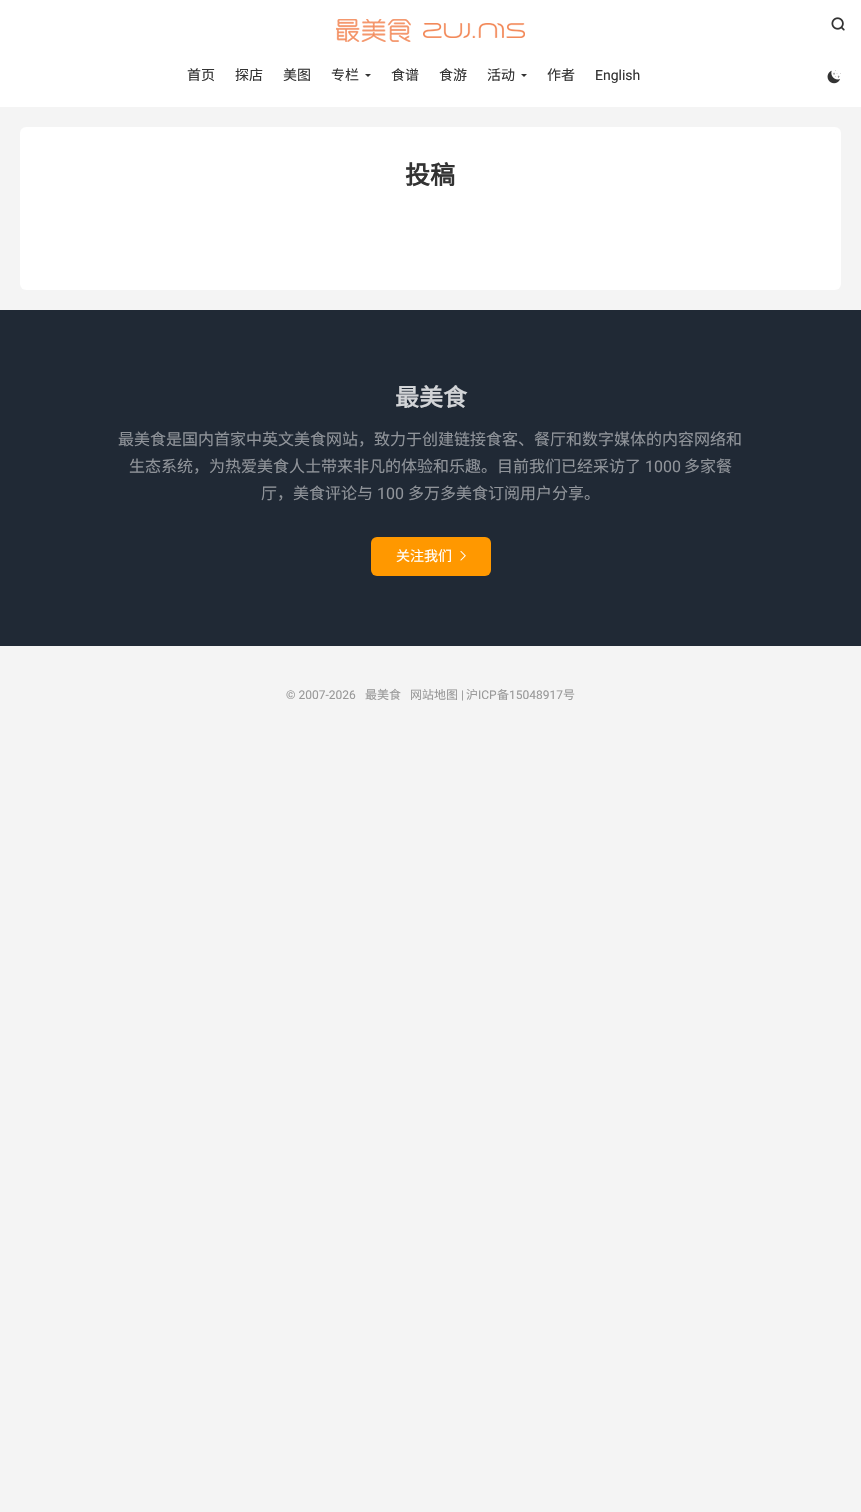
void draw(SkCanvas* c) {
SkPaint p;
p.setAntiAlias(true);
auto F=[&](const char* family, int weight, float size, bool italic = false){SkFontStyle style(weight, SkFontStyle::kNormal_Width,italic ? SkFontStyle::kItalic_Slant : SkFontStyle::kUpright_Slant);SkFont result(fontMgr->matchFamilyStyle(family, style), size);result.setSubpixel(true);return result;};
auto T=[&](const char* s, float x, float y, const SkFont& font){c->drawString(s, x, y, font, p);};
auto R=[&](float x, float y, float w, float h){c->drawRect(SkRect::MakeXYWH(x, y, w, h), p);};
auto Q=[&](float x, float y, float w, float h, float radius){c->drawRoundRect(SkRect::MakeXYWH(x, y, w, h), radius, radius, p);};
auto I=[&](const char* path, float x, float y, float w, float h){auto image = SkImages::DeferredFromEncodedData(SkData::MakeFromFileName(path));c->drawImageRect(image, SkRect::MakeXYWH(x, y, w, h), SkSamplingOptions());};
auto P=[&](const char* data, bool evenOdd = false){SkPath result = *SkParsePath::FromSVGString(data);if (evenOdd) result.setFillType(SkPathFillType::kEvenOdd);return result;};
c->clear(0xfff4f4f4);
p.setColor(0xffffffff);
R(0,0,861,107);
I("1.png",336,19,189,23);
I("2.png",831,17,14,14);
auto f1 = F("Noto Sans CJK SC",400,14);
p.setColor(0xff333333);
T("首页",187,80,f1);
T("探店",235,80,f1);
T("美图",283,80,f1);
T("专栏",331,80,f1);
c->drawPath(P("M365 74h6l-3 3z"),p);
T("食谱",391,80,f1);
T("食游",439,80,f1);
T("活动",487,80,f1);
c->drawPath(P("M521 74h6l-3 3z"),p);
T("作者",547,80,f1);
auto f2 = F("Roboto",400,14);
T("English",595,80,f2);
I("3.png",827,70,14,14);
p.setColor(0xffffffff);
Q(20,127,821,163,6);
auto f3 = F("Noto Sans CJK SC",700,25);
p.setColor(0xff333333);
T("投稿",405,184,f3);
p.setColor(0xff202935);
R(0,310,861,336);
auto f4 = F("Noto Sans CJK SC",700,24);
p.setColor(0xffd2d4d7);
T("最美食",395,406,f4);
auto f5 = F("Noto Sans CJK SC",400,16);
p.setColor(0xff90949a);
T("最美食是国内首家中英文美食网站，致力于创建链接食客、餐厅和数字媒体的内容网络和",118,445,f5);
T("生态系统，为热爱美食人士带来非凡的体验和乐趣。目前我们已经采访了",129,472,f5);
auto f6 = F("Roboto",400,16);
T("1000",645,472,f6);
T("多家餐",684,472,f5);
T("厅，美食评论与",261,499,f5);
T("100",377,499,f6);
T("多万多美食订阅用户分享。",408,499,f5);
p.setColor(0xffff9800);
Q(371,537,120,39,6);
p.setColor(0xffffffff);
T("关注我们",396,561,f1);
I("4.png",460,551,6,10);
auto f7 = F("Roboto",400,12);
p.setColor(0xff999999);
T("© 2007-2026",286,699,f7);
auto f8 = F("Noto Sans CJK SC",400,12);
T("最美食",365,699,f8);
T("网站地图",410,699,f8);
T("|",461,699,f7);
T("沪",466,699,f8);
T("ICP",478,699,f7);
T("备",497,699,f8);
T("15048917",509,699,f7);
T("号",563,699,f8);
}
